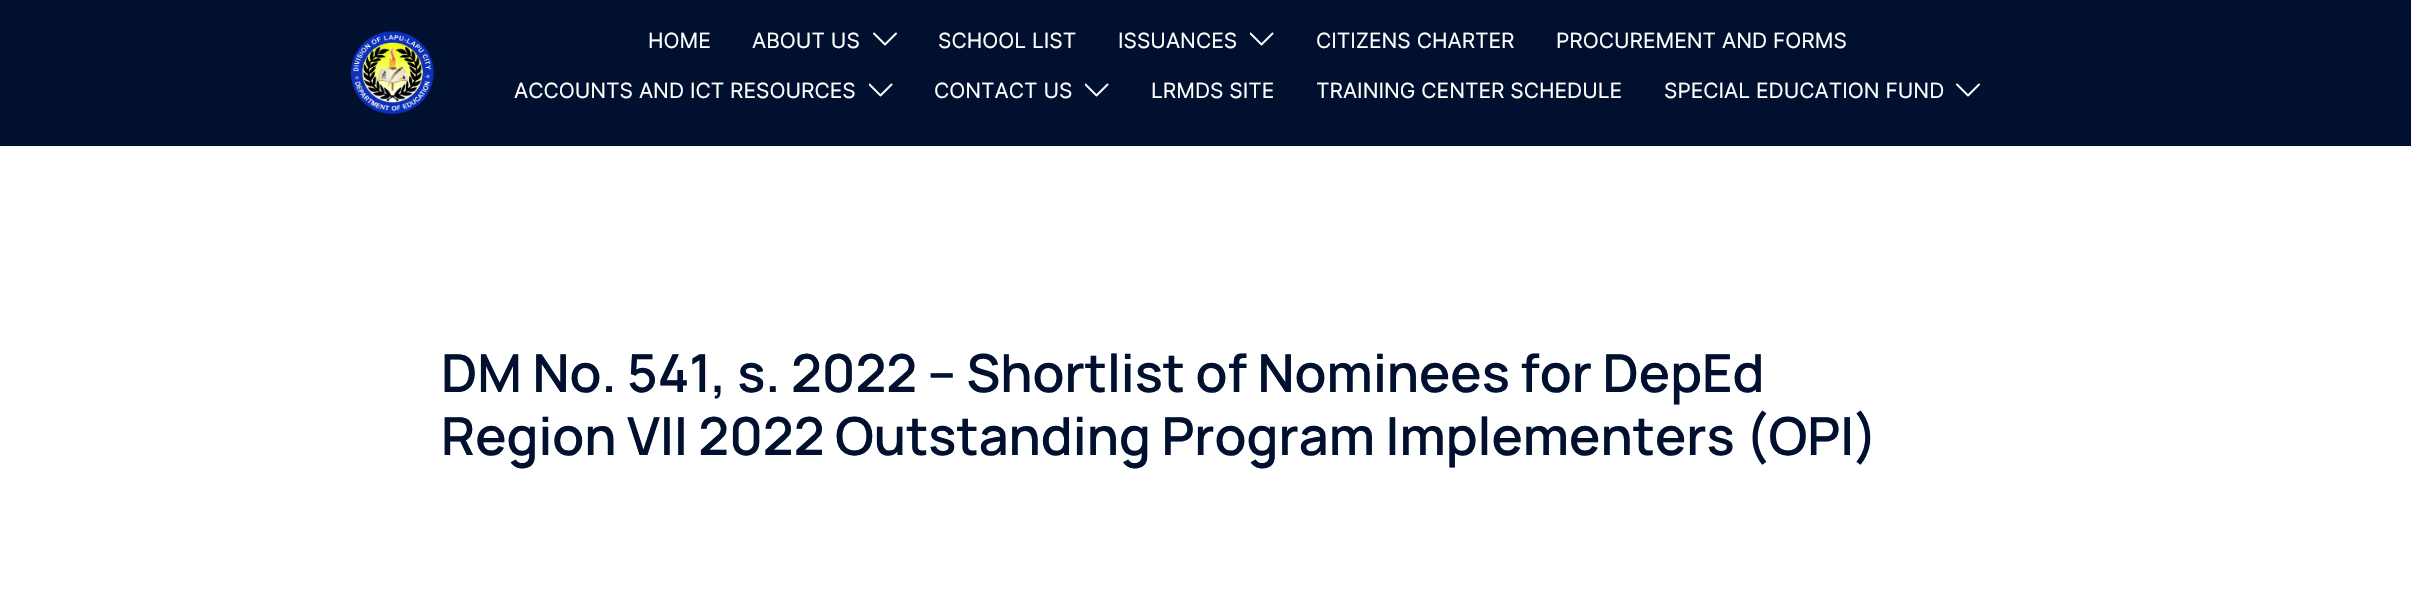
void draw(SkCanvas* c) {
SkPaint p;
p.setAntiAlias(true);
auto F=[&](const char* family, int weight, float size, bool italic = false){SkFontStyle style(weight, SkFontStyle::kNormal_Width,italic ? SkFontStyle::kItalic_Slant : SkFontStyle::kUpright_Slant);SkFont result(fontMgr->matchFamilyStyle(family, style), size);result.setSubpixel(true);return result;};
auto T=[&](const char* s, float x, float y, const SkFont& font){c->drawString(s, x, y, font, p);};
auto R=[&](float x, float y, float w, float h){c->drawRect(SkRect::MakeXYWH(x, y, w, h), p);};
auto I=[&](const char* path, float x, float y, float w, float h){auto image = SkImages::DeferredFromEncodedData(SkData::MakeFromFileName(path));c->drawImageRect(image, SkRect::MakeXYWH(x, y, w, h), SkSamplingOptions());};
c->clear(0xffffffff);
p.setColor(0xff00102e);
R(0,0,2411,146);
I("1.png",351,31,83,83);
auto f1 = F("Inter",400,21);
p.setColor(0xffffffff);
T("HOME",648,48,f1);
T("ABOUT US",752,48,f1);
I("2.png",873,32,24,14);
T("SCHOOL LIST",938,48,f1);
T("ISSUANCES",1118,48,f1);
I("3.png",1250,32,24,14);
T("CITIZENS CHARTER",1316,48,f1);
T("PROCUREMENT AND FORMS",1556,48,f1);
T("ACCOUNTS AND ICT RESOURCES",514,98,f1);
I("3.png",869,83,24,14);
T("CONTACT US",934,98,f1);
I("3.png",1085,83,24,14);
T("LRMDS SITE",1151,98,f1);
T("TRAINING CENTER SCHEDULE",1316,98,f1);
T("SPECIAL EDUCATION FUND",1664,98,f1);
I("2.png",1956,83,24,14);
auto f2 = F("Manrope",200,52.5);
p.setColor(0xff00102e);
T("DM No. 541, s. 2022 – Shortlist of Nominees for DepEd",441,392,f2);
T("Region VII 2022 Outstanding Program Implementers (OPI)",441,455,f2);
}
